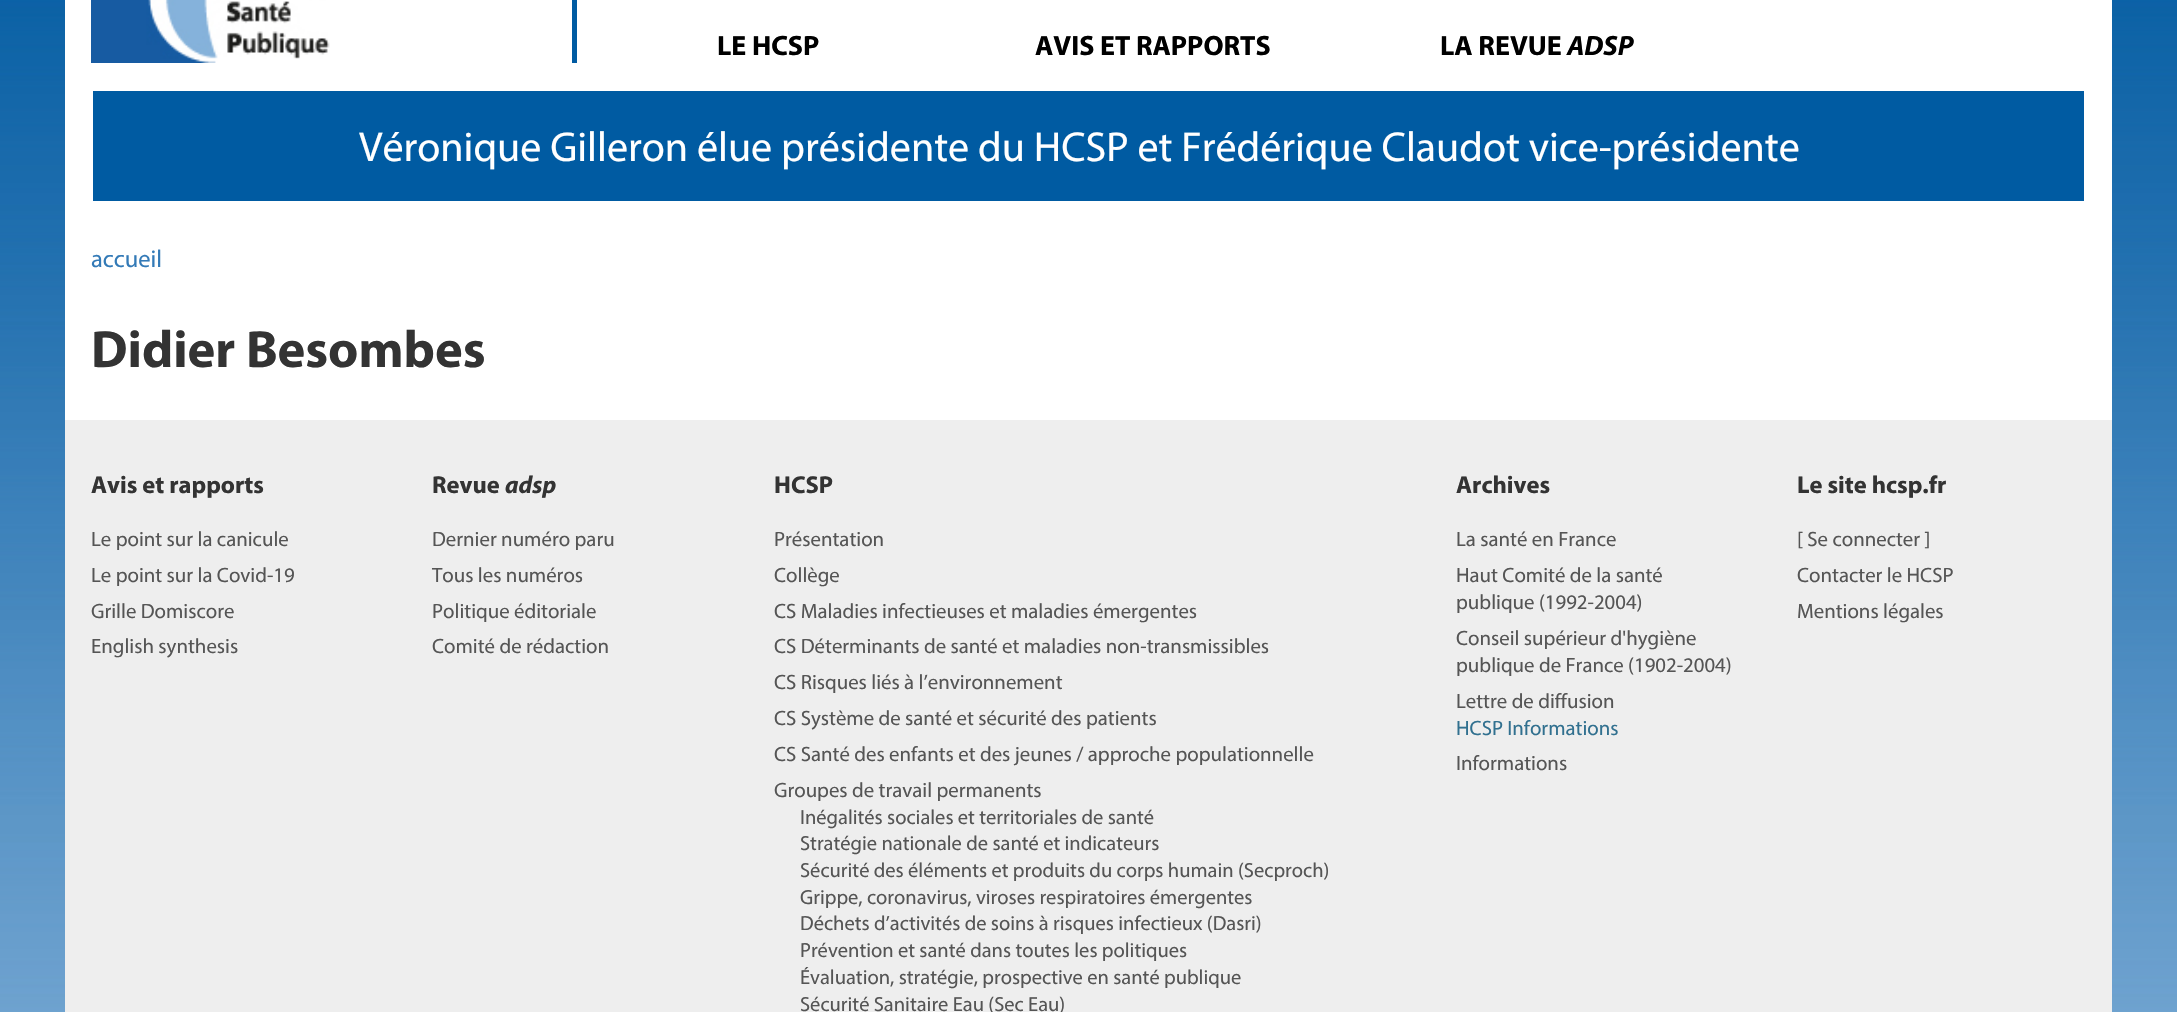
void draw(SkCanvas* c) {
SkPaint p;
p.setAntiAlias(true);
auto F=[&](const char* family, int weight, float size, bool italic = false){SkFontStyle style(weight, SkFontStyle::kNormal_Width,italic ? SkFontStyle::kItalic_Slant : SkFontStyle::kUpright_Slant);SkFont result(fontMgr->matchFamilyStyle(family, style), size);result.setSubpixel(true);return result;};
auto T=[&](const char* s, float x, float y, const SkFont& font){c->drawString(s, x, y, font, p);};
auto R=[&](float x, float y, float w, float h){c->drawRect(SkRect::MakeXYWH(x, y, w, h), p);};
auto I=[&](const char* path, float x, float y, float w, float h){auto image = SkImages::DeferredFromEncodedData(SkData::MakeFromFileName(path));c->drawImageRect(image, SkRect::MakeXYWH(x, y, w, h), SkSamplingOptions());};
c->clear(0xffffffff);
I("1.png",0,0,2177,1012);
p.setColor(0xffffffff);
R(65,0,2047,420);
p.setColor(0xff005ba2);
R(572,0,5,63);
I("2.png",91,0,239,63);
auto f1 = F("Myriad",700,28);
p.setColor(0xff000000);
T("LE HCSP",717,55,f1);
T("AVIS ET RAPPORTS",1035,55,f1);
T("LA REVUE",1440,55,f1);
auto f2 = F("Myriad",700,28,true);
T("ADSP",1567,55,f2);
p.setColor(0xff005ba2);
R(93,91,1991,110);
auto f3 = F("Myriad",400,42);
p.setColor(0xffffffff);
T("Véronique Gilleron élue présidente du HCSP et Frédérique Claudot vice-présidente",359,161,f3);
auto f4 = F("Myriad",400,24.5);
p.setColor(0xff337ab7);
T("accueil",91,267,f4);
auto f5 = F("Myriad",700,52.5);
p.setColor(0xff333333);
T("Didier Besombes",91,367,f5);
p.setColor(0xffeeeeee);
R(65,420,2047,592);
auto f6 = F("Myriad",700,24.5);
p.setColor(0xff333333);
T("Avis et rapports",91,493,f6);
auto f7 = F("Myriad",400,20.8);
p.setColor(0xff555555);
T("Le point sur la canicule",91,546,f7);
T("Le point sur la Covid-19",91,582,f7);
T("Grille Domiscore",91,618,f7);
T("English synthesis",91,653,f7);
p.setColor(0xff333333);
T("Revue",432,493,f6);
auto f8 = F("Myriad",700,24.5,true);
T("adsp",505,493,f8);
p.setColor(0xff555555);
T("Dernier numéro paru",432,546,f7);
T("Tous les numéros",432,582,f7);
T("Politique éditoriale",432,618,f7);
T("Comité de rédaction",432,653,f7);
p.setColor(0xff333333);
T("HCSP",774,493,f6);
p.setColor(0xff555555);
T("Présentation",774,546,f7);
T("Collège",774,582,f7);
T("CS Maladies infectieuses et maladies émergentes",774,618,f7);
T("CS Déterminants de santé et maladies non-transmissibles",774,653,f7);
T("CS Risques liés à l’environnement",774,689,f7);
T("CS Système de santé et sécurité des patients",774,725,f7);
T("CS Santé des enfants et des jeunes / approche populationnelle",774,761,f7);
T("Groupes de travail permanents",774,797,f7);
auto f9 = F("Myriad",400,20.5);
T("Inégalités sociales et territoriales de santé",800,824,f9);
T("Stratégie nationale de santé et indicateurs",800,850,f9);
T("Sécurité des éléments et produits du corps humain (Secproch)",800,877,f9);
T("Grippe, coronavirus, viroses respiratoires émergentes",800,904,f9);
T("Déchets d’activités de soins à risques infectieux (Dasri)",800,930,f9);
T("Prévention et santé dans toutes les politiques",800,957,f9);
T("Évaluation, stratégie, prospective en santé publique",800,984,f9);
T("Sécurité Sanitaire Eau (Sec Eau)",800,1011,f9);
p.setColor(0xff333333);
T("Archives",1456,493,f6);
p.setColor(0xff555555);
T("La santé en France",1456,546,f7);
T("Haut Comité de la santé",1456,582,f7);
T("publique (1992-2004)",1456,609,f7);
T("Conseil supérieur d'hygiène",1456,645,f7);
T("publique de France (1902-2004)",1456,672,f7);
T("Lettre de diffusion",1456,708,f7);
p.setColor(0xff31708f);
T("HCSP Informations",1456,735,f7);
p.setColor(0xff555555);
T("Informations",1456,770,f7);
p.setColor(0xff333333);
T("Le site hcsp.fr",1797,493,f6);
p.setColor(0xff555555);
T("[ Se connecter ]",1797,546,f7);
T("Contacter le HCSP",1797,582,f7);
T("Mentions légales",1797,618,f7);
}
